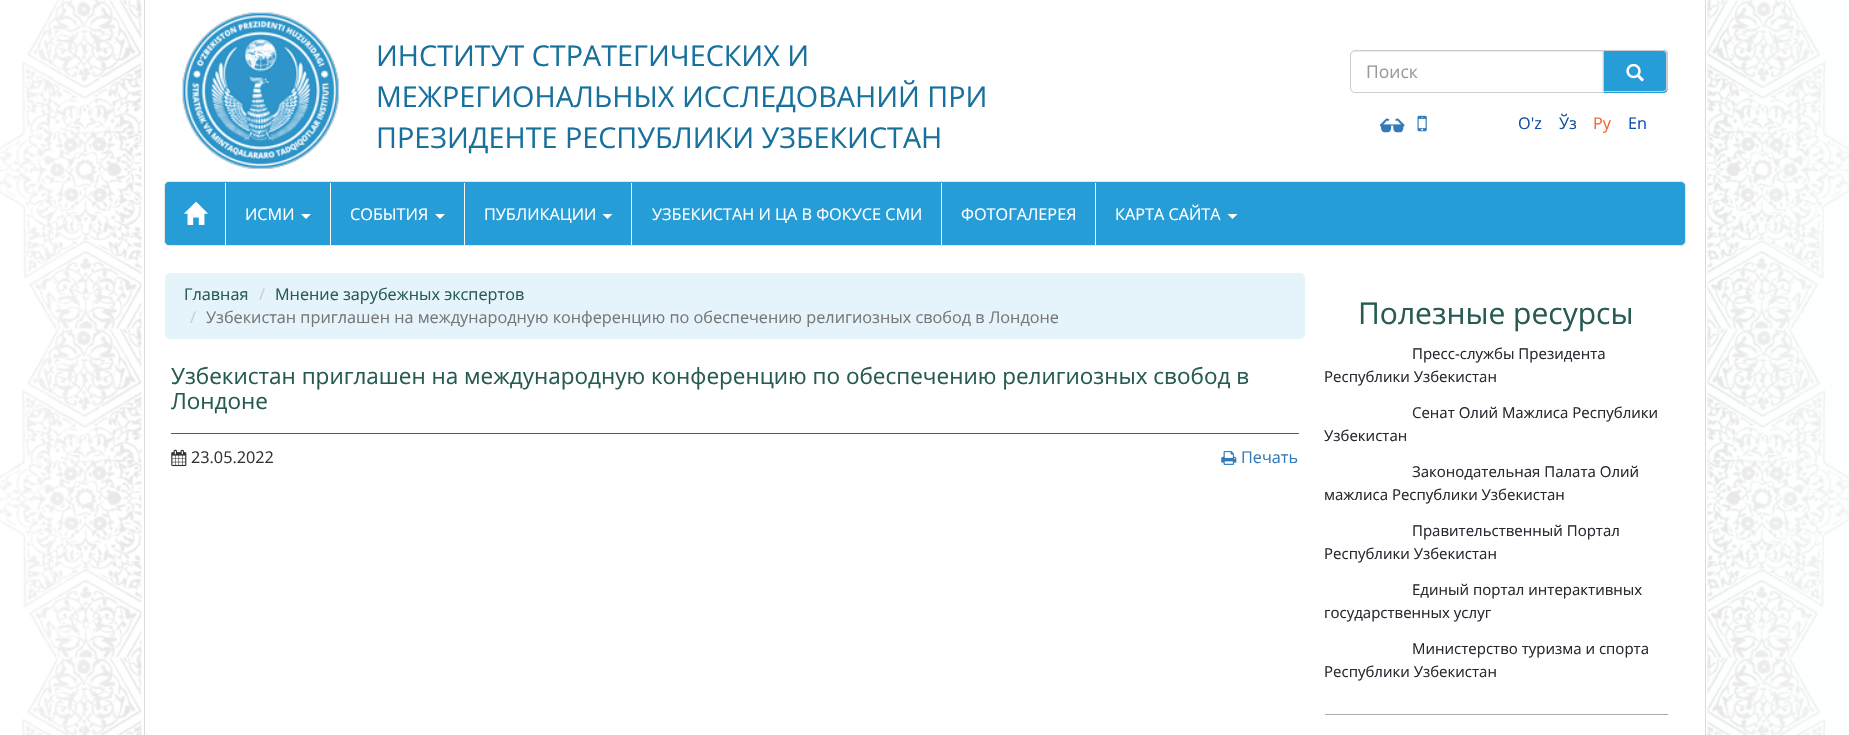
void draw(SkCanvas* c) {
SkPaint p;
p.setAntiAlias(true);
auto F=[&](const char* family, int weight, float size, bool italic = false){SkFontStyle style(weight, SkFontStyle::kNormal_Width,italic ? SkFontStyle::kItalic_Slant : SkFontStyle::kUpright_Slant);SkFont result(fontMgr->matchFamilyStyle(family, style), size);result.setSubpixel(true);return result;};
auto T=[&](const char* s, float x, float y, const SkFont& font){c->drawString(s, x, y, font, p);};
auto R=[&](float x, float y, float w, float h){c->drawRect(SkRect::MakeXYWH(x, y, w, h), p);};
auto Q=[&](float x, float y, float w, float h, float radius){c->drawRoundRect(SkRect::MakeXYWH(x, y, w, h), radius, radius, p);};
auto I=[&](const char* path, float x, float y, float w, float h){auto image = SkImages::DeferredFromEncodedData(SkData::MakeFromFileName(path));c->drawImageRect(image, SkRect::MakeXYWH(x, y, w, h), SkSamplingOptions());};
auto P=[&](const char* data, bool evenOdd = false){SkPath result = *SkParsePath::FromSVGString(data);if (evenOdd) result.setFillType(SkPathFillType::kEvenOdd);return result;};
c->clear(0xffffffff);
p.setColor(0xffdadada);
R(1705,0,1,735);
R(144,0,1,735);
I("1.png",0,0,142,735);
I("2.png",182,12,157,157);
auto f1 = F("Open Sans",400,28.75);
p.setColor(0xff18719c);
T("ИНСТИТУТ СТРАТЕГИЧЕСКИХ И",376,66,f1);
T("МЕЖРЕГИОНАЛЬНЫХ ИССЛЕДОВАНИЙ ПРИ",376,107,f1);
T("ПРЕЗИДЕНТЕ РЕСПУБЛИКИ УЗБЕКИСТАН",376,148,f1);
p.setColor(0xffececec);
c->drawPath(P("M1355 52h247v39h1v-40h-248c-2 0-4 2-4 4v1c0-2 2-4 4-4z"),p);
p.setStroke(true);
p.setStrokeWidth(1);
p.setColor(0xffcccccc);
c->drawPath(P("M1355 50.5h248.5v42h-248.5c-2.5 0-4.5-2-4.5-4.5v-33c0-2.5 2-4.5 4.5-4.5z"),p);
auto f2 = F("Open Sans",400,17.5);
p.setStroke(false);
p.setColor(0xff999999);
T("Поиск",1366,78,f2);
p.setColor(0xff269dd6);
c->drawPath(P("M1604 50h59c3 0 5 2 5 5v33c0 3-2 5-5 5h-59z"),p);
p.setColor(0xffcccccc);
c->drawPath(P("M1604 50h58c3 0 6 2 6 5v33c0 2-3 4-6 4h-58zm0 1h58c3 0 4 2 4 4v33c0 2-1 3-4 3h-58z",true),p);
I("3.png",1626,63,18,19);
I("4.png",1379,118,26,15);
I("5.png",1417,115,10,17);
auto f3 = F("Open Sans",400,16.25);
p.setColor(0xff0d51a5);
T("O'z",1518,129,f3);
T("Ўз",1559,129,f3);
p.setColor(0xfff36530);
T("Ру",1593,129,f3);
p.setColor(0xff0d51a5);
T("En",1628,129,f3);
p.setColor(0xff269dd6);
c->drawRoundRect(SkRect::MakeXYWH(164.5,181.5,1521,64),4.5,4.5,p);
p.setStroke(true);
p.setColor(0xffe7e7e7);
c->drawRoundRect(SkRect::MakeXYWH(164.5,181.5,1521,64),4.5,4.5,p);
I("6.png",184,201,24,24);
p.setStroke(false);
p.setColor(0xffffffff);
R(225,183,1,62);
T("ИСМИ",245,220,f3);
c->drawPath(P("M301 214h10l-5 5z"),p);
R(330,183,1,62);
T("СОБЫТИЯ",350,220,f3);
c->drawPath(P("M435 214h10l-5 5z"),p);
R(464,183,1,62);
T("ПУБЛИКАЦИИ",484,220,f3);
c->drawPath(P("M602.5 214h10l-5 5z"),p);
R(631,183,1,62);
T("УЗБЕКИСТАН И ЦА В ФОКУСЕ СМИ",652,220,f3);
R(941,183,1,62);
T("ФОТОГАЛЕРЕЯ",961,220,f3);
R(1095,183,1,62);
T("КАРТА САЙТА",1115,220,f3);
c->drawPath(P("M1227.5 214h10l-5 5z"),p);
p.setColor(0xffe5f3fa);
Q(165,273,1140,66,5);
p.setColor(0xff265a52);
T("Главная",184,300,f3);
p.setColor(0xffcccccc);
T("/",259,300,f3);
p.setColor(0xff265a52);
T("Мнение зарубежных экспертов",275,300,f3);
p.setColor(0xffcccccc);
T("/",190,323,f3);
p.setColor(0xff777777);
T("Узбекистан приглашен на международную конференцию по обеспечению религиозных свобод в Лондоне",206,323,f3);
p.setColor(0xff43625c);
R(171,433,1128,1);
auto f4 = F("Open Sans",400,22.5);
p.setColor(0xff265a52);
T("Узбекистан приглашен на международную конференцию по обеспечению религиозных свобод в",171,384,f4);
T("Лондоне",171,409,f4);
I("7.png",171,449,16,18);
p.setColor(0xff333333);
T("23.05.2022",191,463,f3);
I("8.png",1221,451,16,14);
p.setColor(0xff337ab7);
T("Печать",1241,463,f3);
p.setColor(0xffaaaaaa);
R(1325,714,343,1);
auto f5 = F("Open Sans",400,30);
p.setColor(0xff265a52);
T("Полезные ресурсы",1358,324,f5);
auto f6 = F("Open Sans",400,15);
p.setColor(0xff2a2730);
T("Пресс-службы Президента",1412,359,f6);
T("Республики Узбекистан",1324,382,f6);
T("Сенат Олий Мажлиса Республики",1412,418,f6);
T("Узбекистан",1324,441,f6);
T("Законодательная Палата Олий",1412,477,f6);
T("мажлиса Республики Узбекистан",1324,500,f6);
T("Правительственный Портал",1412,536,f6);
T("Республики Узбекистан",1324,559,f6);
T("Единый портал интерактивных",1412,595,f6);
T("государственных услуг",1324,618,f6);
T("Министерство туризма и спорта",1412,654,f6);
T("Республики Узбекистан",1324,677,f6);
I("9.png",1707,0,142,735);
}
